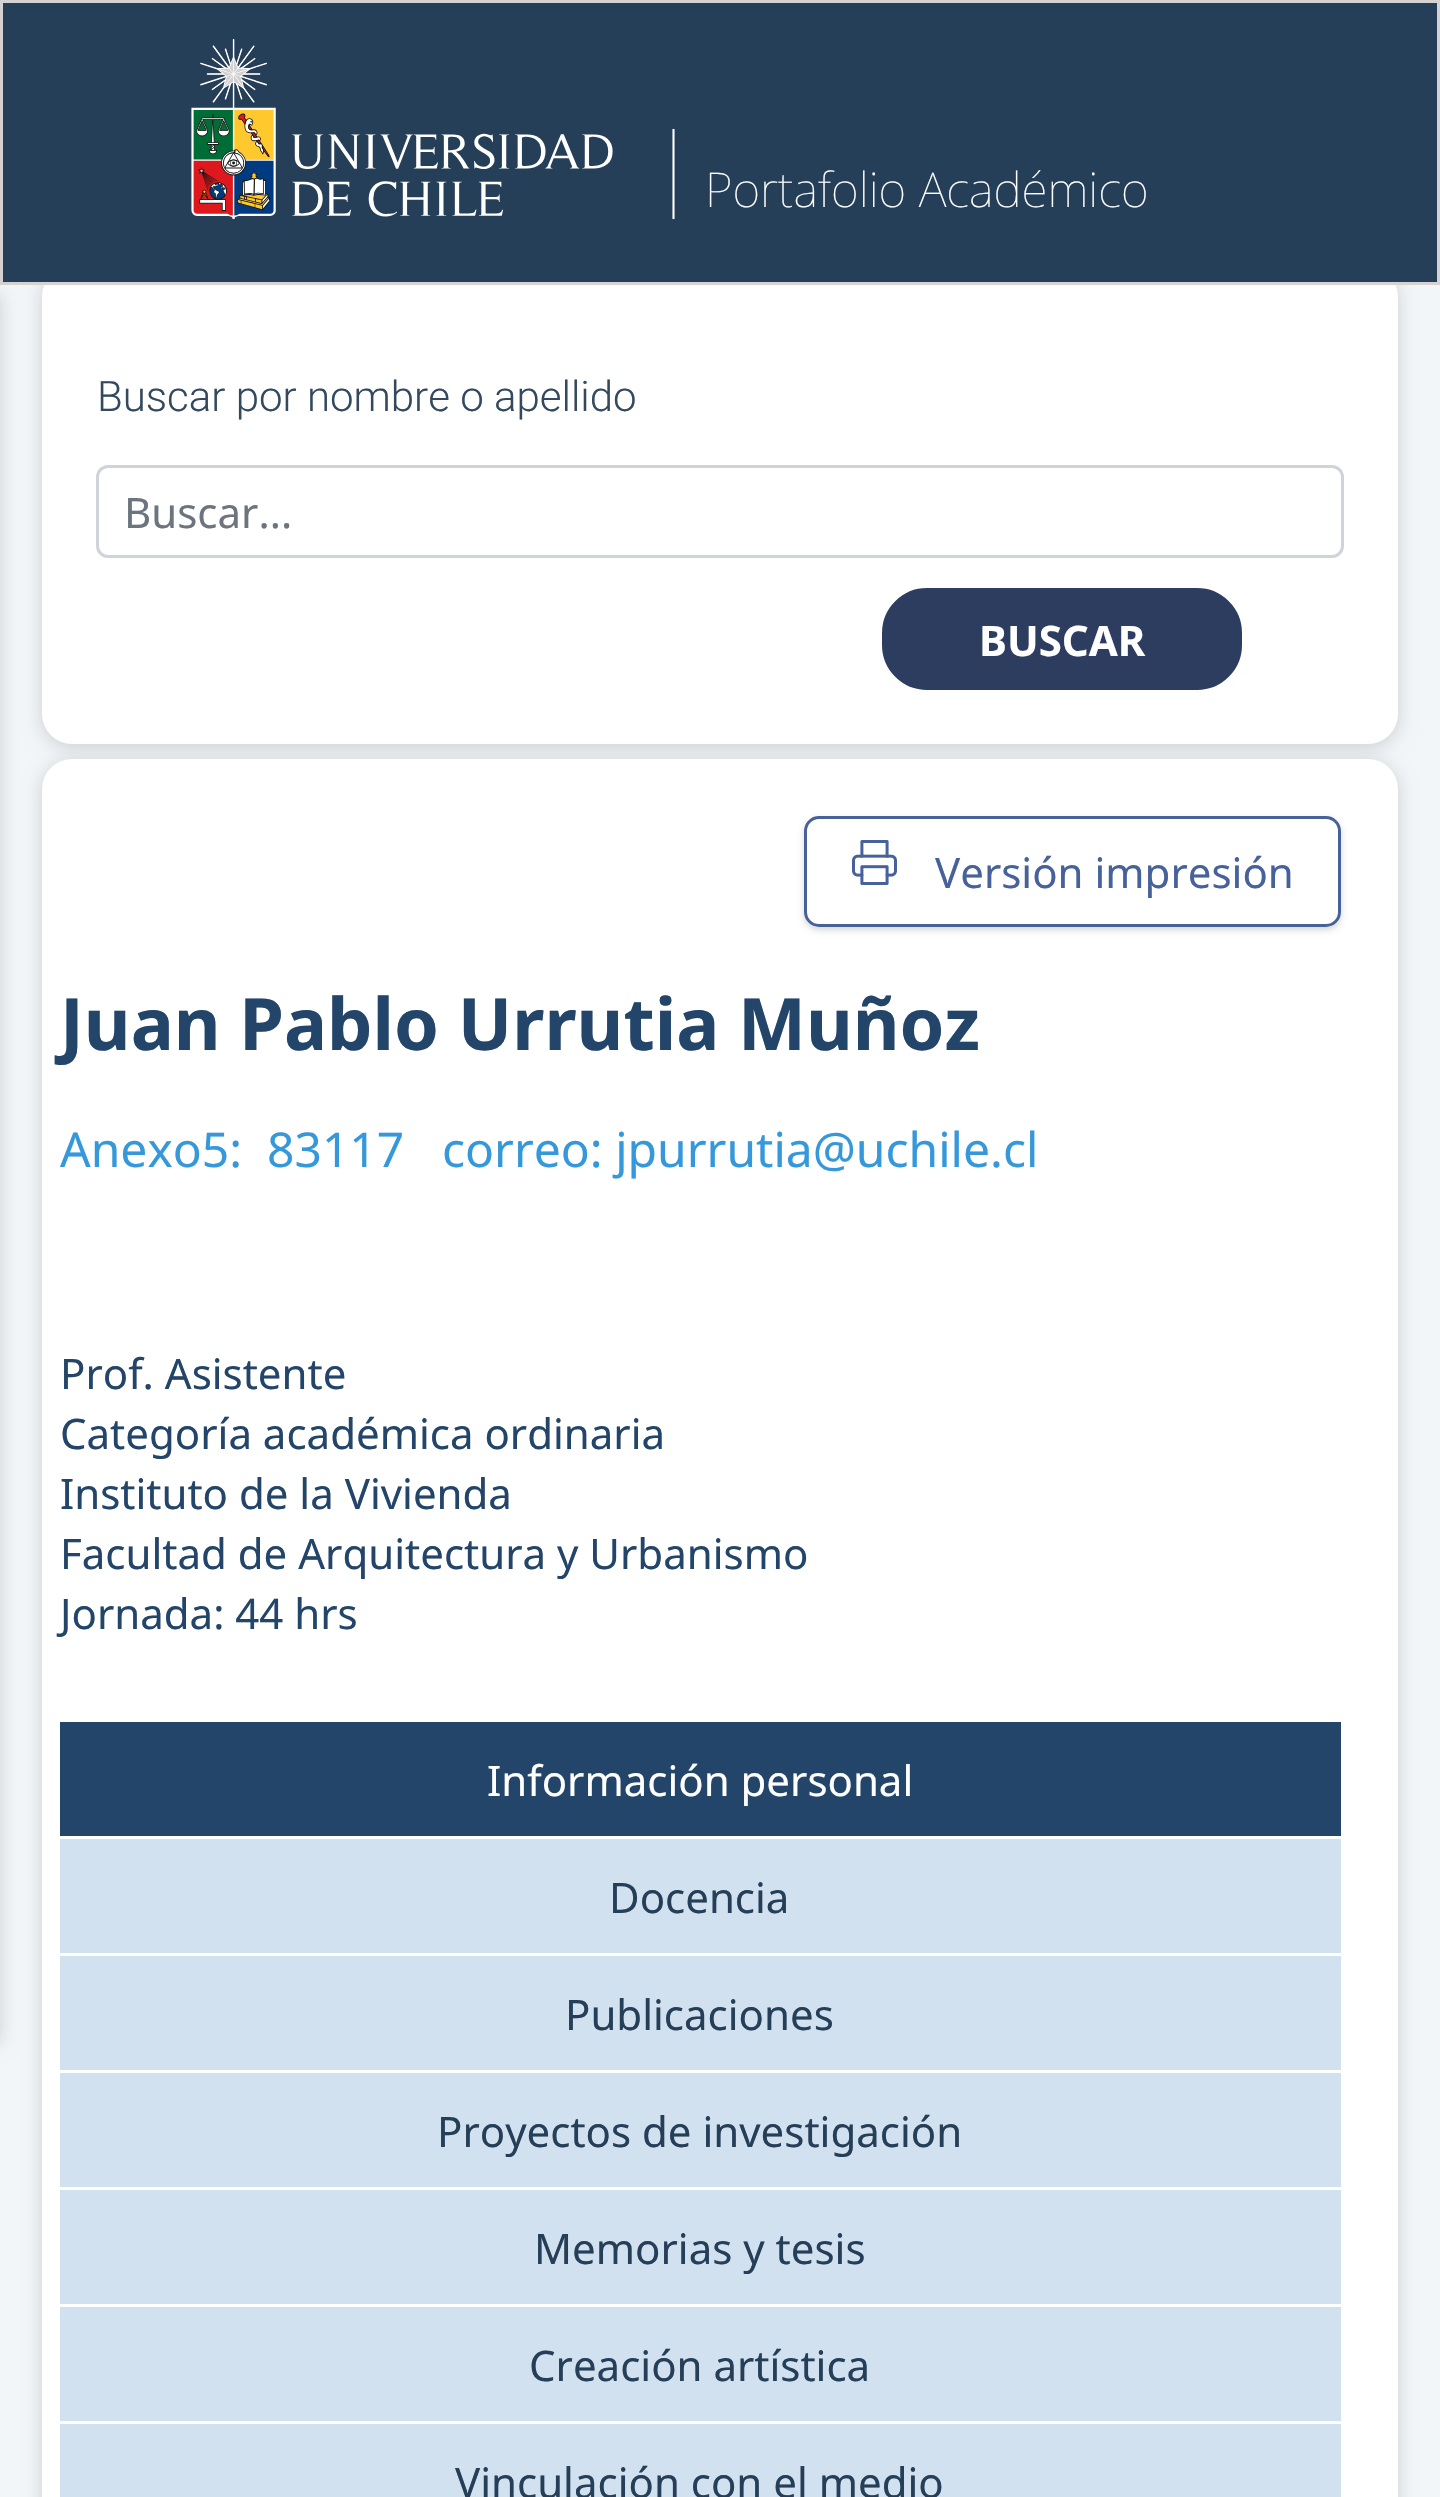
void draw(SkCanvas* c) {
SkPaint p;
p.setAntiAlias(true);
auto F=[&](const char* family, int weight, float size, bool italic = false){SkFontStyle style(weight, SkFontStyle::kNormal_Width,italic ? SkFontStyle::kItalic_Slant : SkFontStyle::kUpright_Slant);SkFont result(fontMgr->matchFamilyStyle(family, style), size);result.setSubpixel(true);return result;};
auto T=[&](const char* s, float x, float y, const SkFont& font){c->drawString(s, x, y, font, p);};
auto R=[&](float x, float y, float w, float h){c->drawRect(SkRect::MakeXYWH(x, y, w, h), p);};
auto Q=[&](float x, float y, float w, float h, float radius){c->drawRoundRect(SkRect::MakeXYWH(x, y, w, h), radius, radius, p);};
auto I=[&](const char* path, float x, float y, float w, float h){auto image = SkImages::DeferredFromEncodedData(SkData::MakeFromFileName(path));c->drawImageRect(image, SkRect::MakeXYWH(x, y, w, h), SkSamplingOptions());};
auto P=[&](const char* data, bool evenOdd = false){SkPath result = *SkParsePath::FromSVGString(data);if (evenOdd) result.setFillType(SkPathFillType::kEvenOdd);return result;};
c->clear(0xfff3f6f9);
p.setColor(0x29000000);
p.setMaskFilter(SkMaskFilter::MakeBlur(kNormal_SkBlurStyle, 9));
c->drawRoundRect(SkRect::MakeXYWH(42,270,1356,477),30,30,p);
p.setMaskFilter(nullptr);
p.setColor(0xffffffff);
Q(42,267,1356,477,30);
p.setColor(0xff263f58);
c->drawRect(SkRect::MakeXYWH(1.5,1.5,1437,282),p);
p.setStroke(true);
p.setStrokeWidth(3);
p.setColor(0xffd6d2d2);
c->drawRect(SkRect::MakeXYWH(1.5,1.5,1437,282),p);
I("1.png",191,39,422,180);
p.setStrokeWidth(2.1);
p.setColor(0xffffffff);
c->drawPath(P("M673.5 129v90"),p);
auto f1 = F("Noto Sans",100,48);
p.setStroke(false);
T("Portafolio Académico",705,207,f1);
p.setColor(0x29000000);
p.setMaskFilter(SkMaskFilter::MakeBlur(kNormal_SkBlurStyle, 9));
c->drawRect(SkRect::MakeXYWH(-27,294,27,1749),p);
p.setMaskFilter(nullptr);
auto f2 = F("Roboto",300,42);
p.setColor(0xff34495e);
T("Buscar por nombre o apellido",97,411,f2);
p.setStroke(true);
p.setStrokeWidth(3);
p.setColor(0xffced4da);
c->drawRoundRect(SkRect::MakeXYWH(97.5,466.5,1245,90),10.5,10.5,p);
auto f3 = F("Noto Sans",400,42);
p.setStroke(false);
p.setColor(0xff6c757d);
T("Buscar...",124,528,f3);
p.setColor(0xff2c3d5f);
c->drawRoundRect(SkRect::MakeXYWH(883.5,589.5,357,99),43.5,43.5,p);
p.setStroke(true);
c->drawRoundRect(SkRect::MakeXYWH(883.5,589.5,357,99),43.5,43.5,p);
auto f4 = F("Noto Sans",700,42);
p.setStroke(false);
p.setColor(0xffffffff);
T("BUSCAR",979,656,f4);
p.setColor(0x29000000);
p.setMaskFilter(SkMaskFilter::MakeBlur(kNormal_SkBlurStyle, 9));
c->drawRoundRect(SkRect::MakeXYWH(42,762,1356,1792),30,30,p);
p.setMaskFilter(nullptr);
p.setColor(0xffffffff);
Q(42,759,1356,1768,30);
c->save();
c->clipPath(P("M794 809h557v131h-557zm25 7h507c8.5 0 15 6.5 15 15v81c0 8.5-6.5 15-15 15h-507c-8.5 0-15-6.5-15-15v-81c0-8.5 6.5-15 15-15z",true),true);
p.setColor(0x29000000);
p.setMaskFilter(SkMaskFilter::MakeBlur(kNormal_SkBlurStyle, 3));
c->drawRoundRect(SkRect::MakeXYWH(804,819,537,111),15,15,p);
p.setMaskFilter(nullptr);
c->restore();
p.setStroke(true);
p.setColor(0xff47629a);
c->drawRoundRect(SkRect::MakeXYWH(805.5,817.5,534,108),13.5,13.5,p);
I("2.png",852,840,45,45);
p.setStroke(false);
T("Versión impresión",935,888,f3);
auto f5 = F("Noto Sans",700,72);
p.setColor(0xff234569);
T("Juan Pablo Urrutia Muñoz",60,1050,f5);
auto f6 = F("Noto Sans",400,48);
p.setColor(0xff3598db);
T("Anexo5:",60,1167,f6);
T("83117",267,1167,f6);
T("correo: jpurrutia@uchile.cl",442,1167,f6);
p.setColor(0xff234569);
T("Prof. Asistente",60,1389,f3);
T("Categoría académica ordinaria",60,1449,f3);
T("Instituto de la Vivienda",60,1509,f3);
T("Facultad de Arquitectura y Urbanismo",60,1569,f3);
T("Jornada: 44 hrs",60,1629,f3);
p.setColor(0xffd2e1ef);
R(60,1839,1281,658);
p.setColor(0xff234569);
R(60,1722,1281,114);
p.setColor(0xffffffff);
T("Información personal",487,1796,f3);
p.setStroke(true);
c->drawRect(SkRect::MakeXYWH(58.5,1837.5,1284,117),p);
p.setStroke(false);
p.setColor(0xff263f58);
T("Docencia",609,1913,f3);
p.setStroke(true);
p.setColor(0xffffffff);
c->drawRect(SkRect::MakeXYWH(58.5,1954.5,1284,117),p);
p.setStroke(false);
p.setColor(0xff263f58);
T("Publicaciones",565,2030,f3);
p.setStroke(true);
p.setColor(0xffffffff);
c->drawRect(SkRect::MakeXYWH(58.5,2071.5,1284,117),p);
p.setStroke(false);
p.setColor(0xff263f58);
T("Proyectos de investigación",437,2147,f3);
p.setStroke(true);
p.setColor(0xffffffff);
c->drawRect(SkRect::MakeXYWH(58.5,2188.5,1284,117),p);
p.setStroke(false);
p.setColor(0xff263f58);
T("Memorias y tesis",534,2264,f3);
p.setStroke(true);
p.setColor(0xffffffff);
c->drawRect(SkRect::MakeXYWH(58.5,2305.5,1284,117),p);
p.setStroke(false);
p.setColor(0xff263f58);
T("Creación artística",529,2381,f3);
T("Vinculación con el medio",455,2498,f3);
}
